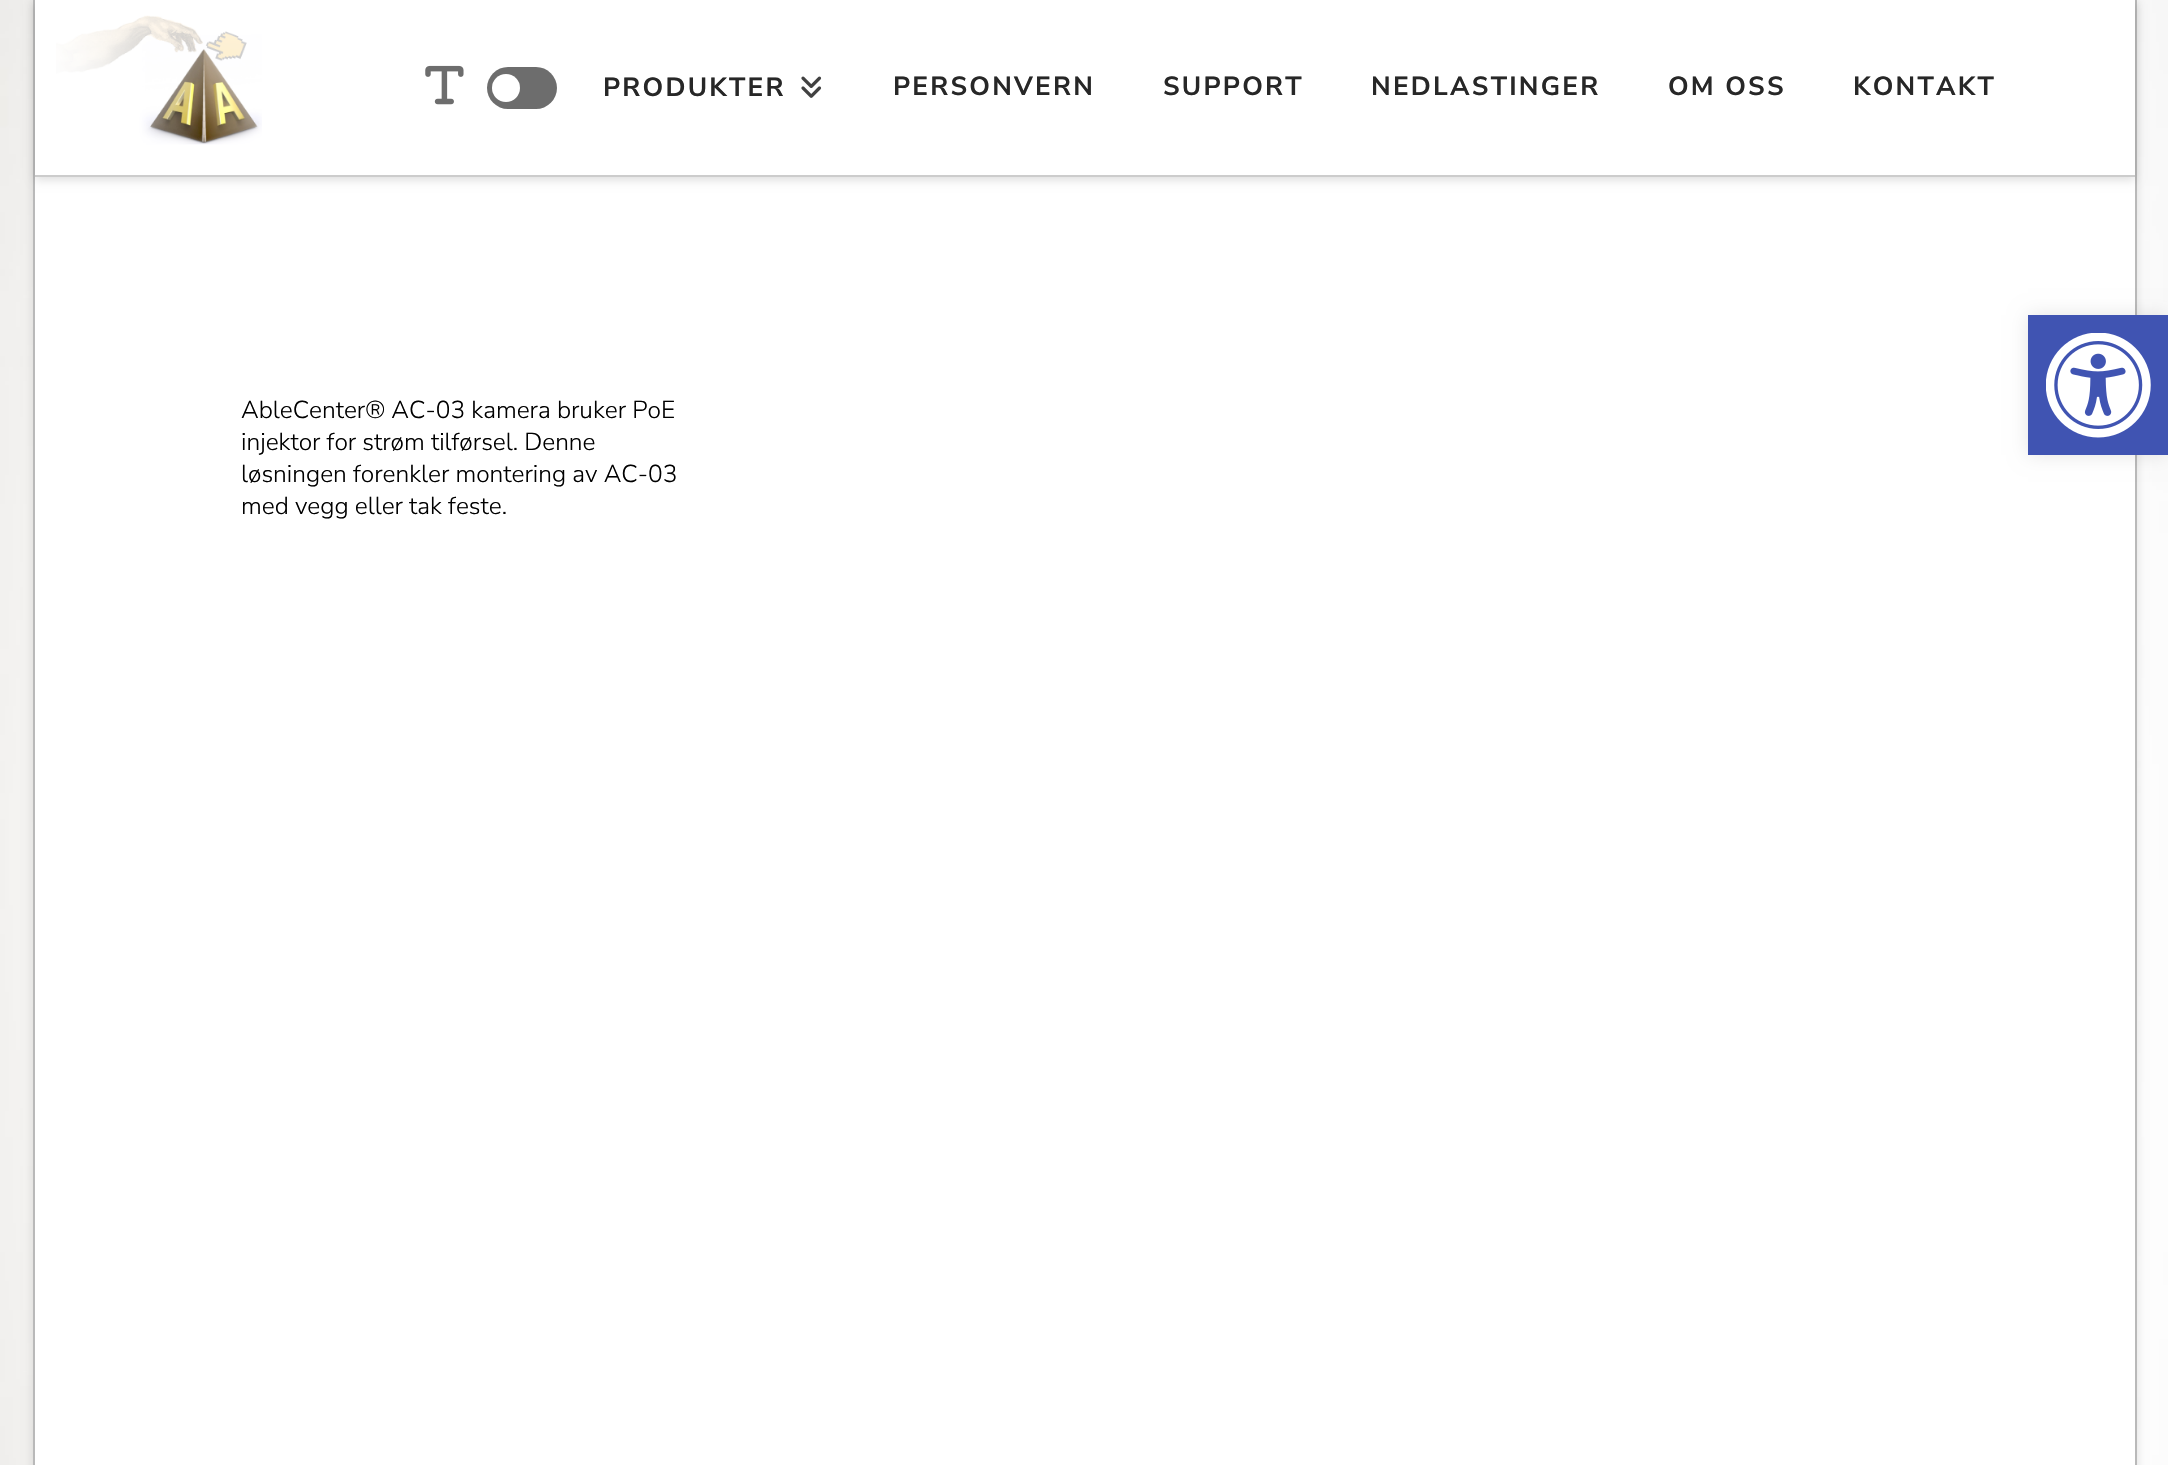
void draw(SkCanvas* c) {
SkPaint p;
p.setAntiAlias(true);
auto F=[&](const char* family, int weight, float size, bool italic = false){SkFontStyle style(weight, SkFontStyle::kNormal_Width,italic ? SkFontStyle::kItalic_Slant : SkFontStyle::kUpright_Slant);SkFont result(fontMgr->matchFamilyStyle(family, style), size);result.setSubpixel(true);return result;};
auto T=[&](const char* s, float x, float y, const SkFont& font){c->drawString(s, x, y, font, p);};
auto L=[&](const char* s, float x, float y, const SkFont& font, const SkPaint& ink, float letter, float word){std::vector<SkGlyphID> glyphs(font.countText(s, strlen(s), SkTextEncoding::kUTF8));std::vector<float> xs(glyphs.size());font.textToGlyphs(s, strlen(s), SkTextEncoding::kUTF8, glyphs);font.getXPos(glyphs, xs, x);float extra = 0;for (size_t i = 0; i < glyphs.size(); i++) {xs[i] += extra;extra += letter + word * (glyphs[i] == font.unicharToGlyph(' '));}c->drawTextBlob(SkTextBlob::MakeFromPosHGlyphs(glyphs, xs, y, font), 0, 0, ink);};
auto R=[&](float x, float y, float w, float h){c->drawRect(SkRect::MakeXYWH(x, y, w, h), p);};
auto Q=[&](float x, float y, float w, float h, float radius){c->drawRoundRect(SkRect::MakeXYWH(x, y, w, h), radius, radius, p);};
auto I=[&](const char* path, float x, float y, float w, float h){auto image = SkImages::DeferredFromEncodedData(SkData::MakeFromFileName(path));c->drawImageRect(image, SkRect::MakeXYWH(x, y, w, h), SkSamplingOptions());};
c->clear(0xffffffff);
I("1.png",0,0,2168,1465);
p.setColor(0x1f000000);
p.setMaskFilter(SkMaskFilter::MakeBlur(kNormal_SkBlurStyle, 4.5));
c->drawRect(SkRect::MakeXYWH(33,0,2104,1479),p);
p.setMaskFilter(nullptr);
p.setColor(0xffffffff);
R(35,177,2100,1288);
p.setColor(0xffb9b9b9);
R(2135,0,2,1465);
R(33,0,2,1465);
p.setColor(0x21000000);
p.setMaskFilter(SkMaskFilter::MakeBlur(kNormal_SkBlurStyle, 4.5));
c->drawRect(SkRect::MakeXYWH(35,4,2100,176),p);
p.setMaskFilter(nullptr);
p.setColor(0xffffffff);
R(35,0,2100,175);
p.setColor(0xffcccccc);
R(35,175,2100,2);
I("2.png",56,15,206,130);
I("3.png",425,65,39,40);
p.setColor(0xff6d6d6d);
Q(487,67,70,42,21);
p.setColor(0xffffffff);
c->drawCircle(506,88,14,p);
auto f1 = F("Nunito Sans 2",200,26.25);
p.setColor(0xff272727);
L("PRODUKTER",603,96,f1,p,2.25,0);
I("4.png",801,76,21,22);
L("PERSONVERN",893,95,f1,p,2.25,0);
L("SUPPORT",1163,95,f1,p,2.25,0);
L("NEDLASTINGER",1371,95,f1,p,2.25,0);
L("OM OSS",1668,95,f1,p,2.25,0);
L("KONTAKT",1853,95,f1,p,2.25,0);
auto f2 = F("Nunito Sans",200,24.5);
p.setColor(0xff000000);
T("AbleCenter® AC-03 kamera bruker PoE",241,418,f2);
T("injektor for strøm tilførsel. Denne",241,450,f2);
T("løsningen forenkler montering av AC-03",241,482,f2);
T("med vegg eller tak feste.",241,514,f2);
p.setColor(0x1a000000);
p.setMaskFilter(SkMaskFilter::MakeBlur(kNormal_SkBlurStyle, 9));
c->drawRect(SkRect::MakeXYWH(2028,315,140,140),p);
p.setMaskFilter(nullptr);
p.setColor(0xff4054b2);
R(2028,315,140,140);
I("5.png",2046,333,105,105);
}
